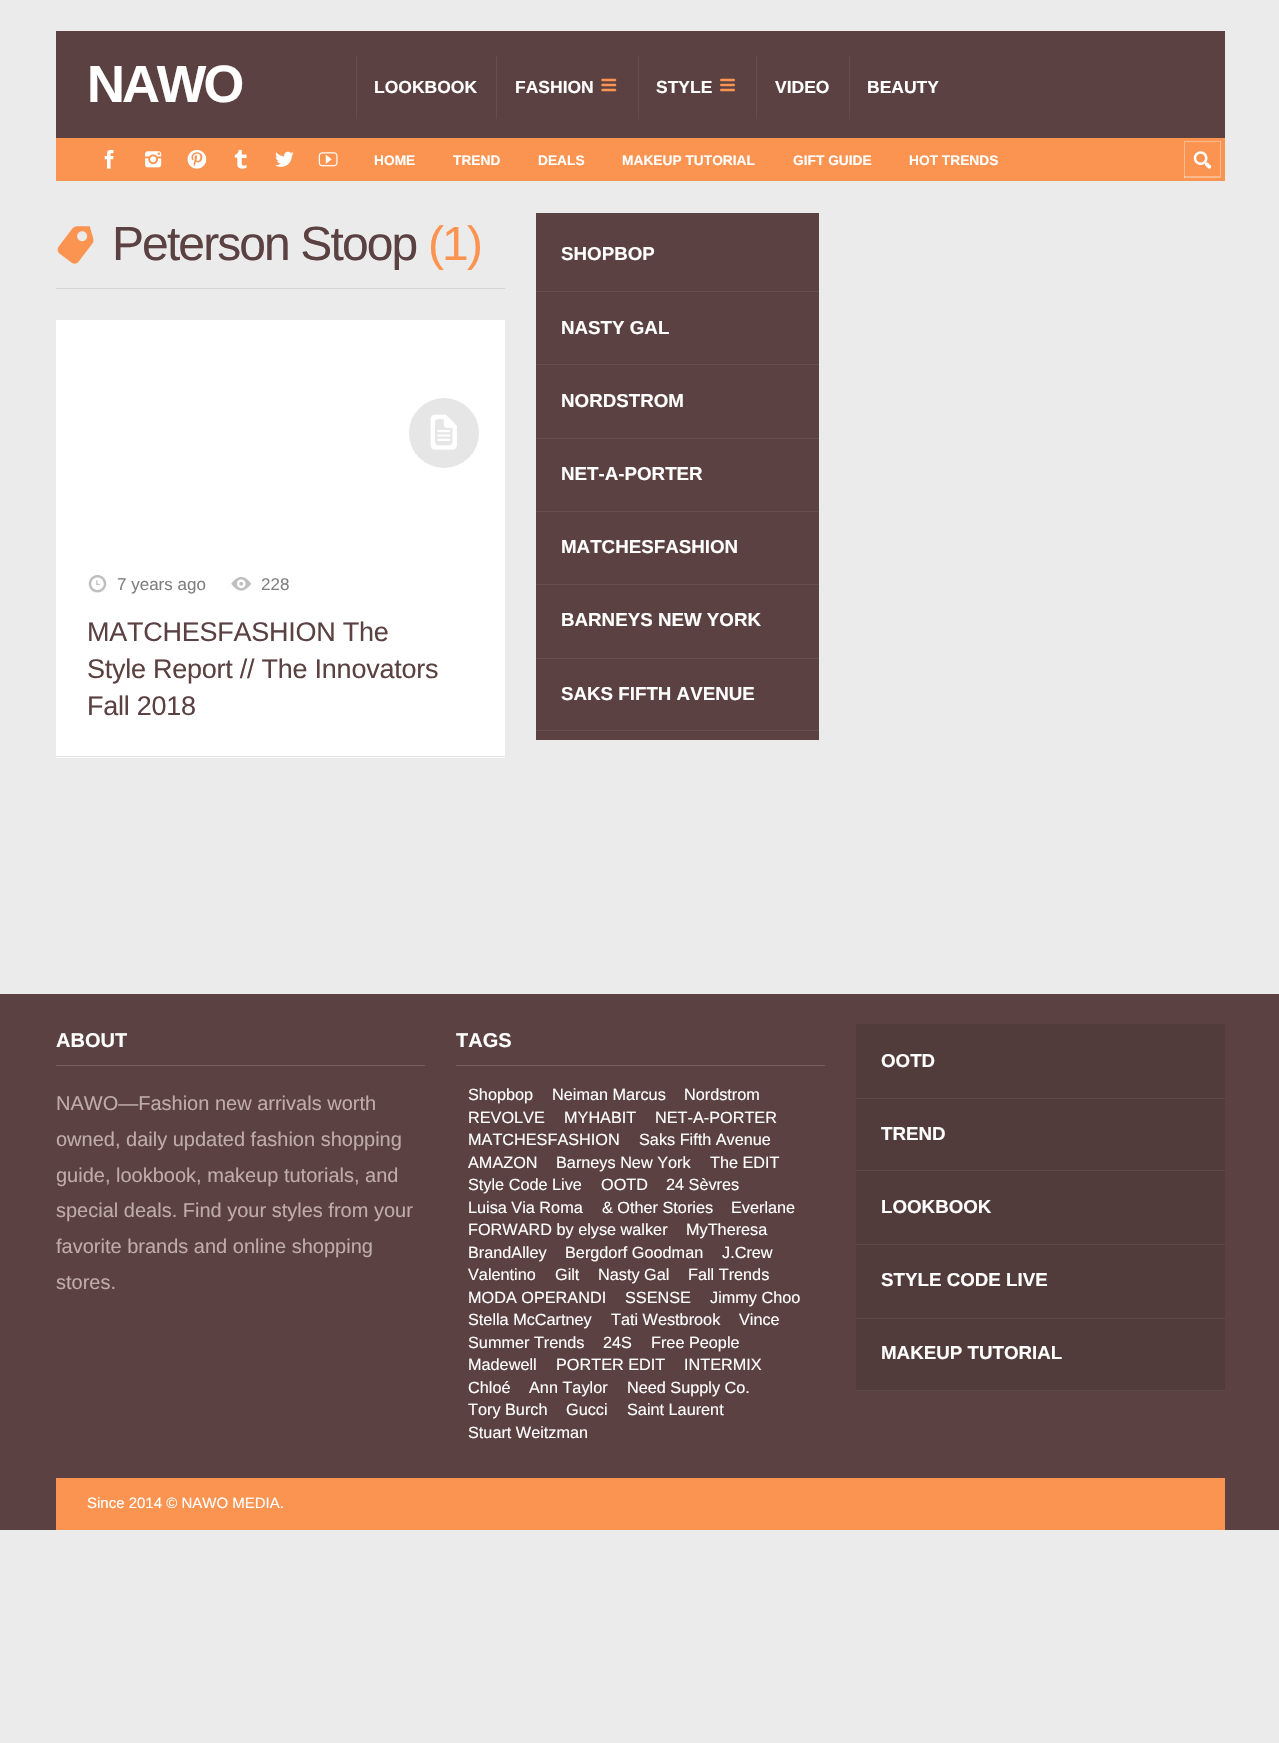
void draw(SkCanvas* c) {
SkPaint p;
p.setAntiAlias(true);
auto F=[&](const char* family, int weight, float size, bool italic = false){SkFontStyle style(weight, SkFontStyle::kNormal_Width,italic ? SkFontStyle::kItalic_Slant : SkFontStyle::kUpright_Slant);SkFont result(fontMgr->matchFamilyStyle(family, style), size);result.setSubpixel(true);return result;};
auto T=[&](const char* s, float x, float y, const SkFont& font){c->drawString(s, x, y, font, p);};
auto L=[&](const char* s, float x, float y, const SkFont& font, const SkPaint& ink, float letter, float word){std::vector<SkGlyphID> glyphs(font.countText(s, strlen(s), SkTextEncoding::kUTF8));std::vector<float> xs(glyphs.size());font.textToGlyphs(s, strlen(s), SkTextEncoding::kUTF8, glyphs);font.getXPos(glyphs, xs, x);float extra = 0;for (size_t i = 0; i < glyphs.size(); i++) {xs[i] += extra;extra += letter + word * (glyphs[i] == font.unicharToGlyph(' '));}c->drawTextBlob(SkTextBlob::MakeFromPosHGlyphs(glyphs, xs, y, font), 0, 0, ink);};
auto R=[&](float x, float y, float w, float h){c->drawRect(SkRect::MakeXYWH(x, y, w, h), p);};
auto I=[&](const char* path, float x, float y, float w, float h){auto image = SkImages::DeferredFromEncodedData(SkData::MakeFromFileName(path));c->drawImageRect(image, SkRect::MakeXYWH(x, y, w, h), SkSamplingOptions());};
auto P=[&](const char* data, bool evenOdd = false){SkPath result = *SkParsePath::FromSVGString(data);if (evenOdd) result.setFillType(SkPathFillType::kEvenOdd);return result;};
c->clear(0xffebebeb);
p.setColor(0xff5b4141);
R(56,31,1169,107);
auto f1 = F("Liberation Sans",700,52.5);
p.setColor(0xffffffff);
L("NAWO",87,102,f1,p,-3,0);
p.setColor(0xff664e4e);
R(356,56,1,63);
auto f2 = F("Liberation Sans",700,17.5);
p.setColor(0xffffffff);
T("LOOKBOOK",374,93,f2);
p.setColor(0xff664e4e);
R(496,56,1,63);
p.setColor(0xffffffff);
T("FASHION",515,93,f2);
I("1.png",601,78,16,14);
p.setColor(0xff664e4e);
R(638,56,1,63);
p.setColor(0xffffffff);
T("STYLE",656,93,f2);
I("2.png",720,78,15,14);
p.setColor(0xff664e4e);
R(756,56,1,63);
p.setColor(0xffffffff);
T("VIDEO",775,93,f2);
p.setColor(0xff664e4e);
R(849,56,1,63);
p.setColor(0xffffffff);
T("BEAUTY",867,93,f2);
p.setColor(0xfffb9351);
R(56,138,1169,43);
I("3.png",104,149,10,20);
I("4.png",145,151,17,17);
I("5.png",187,149,20,20);
I("6.png",234,149,13,20);
I("7.png",275,151,19,16);
I("8.png",318,152,20,15);
auto f3 = F("Liberation Sans",700,13.75);
p.setColor(0xffffffff);
T("HOME",374,165,f3);
T("TREND",453,165,f3);
T("DEALS",538,165,f3);
T("MAKEUP TUTORIAL",622,165,f3);
T("GIFT GUIDE",793,165,f3);
T("HOT TRENDS",909,165,f3);
c->save();
c->clipRect(SkRect::MakeXYWH(1184,141,37,37));
p.setColor(0xfffcb98e);
c->drawPath(P("M1060 18h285v283h-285zm122 122h38v36h-38z",true),p);
p.setColor(0x59ffffff);
c->drawPath(P("M1060 18h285v283h-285zm125 124h37v37h-37z",true),p);
c->restore();
I("9.png",1193,151,19,18);
p.setColor(0xffd4d4d4);
R(56,288,449,1);
I("10.png",57,226,37,38);
auto f4 = F("Liberation Sans",400,48);
p.setColor(0xff5b4141);
L("Peterson Stoop",112,260,f4,p,-1.9,0);
p.setColor(0xfffb9351);
L("(1)",428,260,f4,p,-1.9,0);
p.setColor(0xffffffff);
R(56,320,449,438);
p.setColor(0xffe6e6e6);
R(56,756,449,1);
c->drawCircle(444,433,35,p);
I("11.png",430,414,27,36);
I("12.png",88,575,19,18);
auto f5 = F("Liberation Sans",400,17);
p.setColor(0xff808080);
T("7 years ago",117,590,f5);
I("13.png",231,577,20,14);
T("228",261,590,f5);
auto f6 = F("Liberation Sans",400,27);
p.setColor(0xff5b4141);
L("MATCHESFASHION The",87,641,f6,p,-.25,0);
L("Style Report // The Innovators",87,678,f6,p,-.25,0);
L("Fall 2018",87,715,f6,p,-.25,0);
R(536,213,283,527);
p.setColor(0xff664e4e);
R(536,291,283,1);
auto f7 = F("Liberation Sans",700,18.75);
p.setColor(0xffffffff);
T("SHOPBOP",561,260,f7);
p.setColor(0xff664e4e);
R(536,364,283,1);
p.setColor(0xffffffff);
T("NASTY GAL",561,334,f7);
p.setColor(0xff664e4e);
R(536,438,283,1);
p.setColor(0xffffffff);
T("NORDSTROM",561,407,f7);
p.setColor(0xff664e4e);
R(536,511,283,1);
p.setColor(0xffffffff);
T("NET-A-PORTER",561,480,f7);
p.setColor(0xff664e4e);
R(536,584,283,1);
p.setColor(0xffffffff);
T("MATCHESFASHION",561,553,f7);
p.setColor(0xff664e4e);
R(536,658,283,1);
p.setColor(0xffffffff);
T("BARNEYS NEW YORK",561,626,f7);
p.setColor(0xff664e4e);
R(536,730,283,1);
p.setColor(0xffffffff);
T("SAKS FIFTH AVENUE",561,700,f7);
p.setColor(0xff5b4141);
R(0,994,1279,536);
p.setColor(0xff745e5e);
R(56,1065,369,1);
auto f8 = F("Liberation Sans",700,20);
p.setColor(0xffffffff);
T("ABOUT",56,1047,f8);
auto f9 = F("Liberation Sans",400,20);
p.setColor(0xffc0abab);
T("NAWO—Fashion new arrivals worth",56,1110,f9);
T("owned, daily updated fashion shopping",56,1146,f9);
T("guide, lookbook, makeup tutorials, and",56,1182,f9);
T("special deals. Find your styles from your",56,1217,f9);
T("favorite brands and online shopping",56,1253,f9);
T("stores.",56,1289,f9);
p.setColor(0xff745e5e);
R(456,1065,369,1);
p.setColor(0xffffffff);
T("TAGS",456,1047,f8);
auto f10 = F("Liberation Sans",400,16.25);
T("Shopbop",468,1100,f10);
T("Neiman Marcus",552,1100,f10);
T("Nordstrom",684,1100,f10);
T("REVOLVE",468,1123,f10);
T("MYHABIT",564,1123,f10);
T("NET-A-PORTER",655,1123,f10);
T("MATCHESFASHION",468,1145,f10);
T("Saks Fifth Avenue",639,1145,f10);
T("AMAZON",468,1168,f10);
T("Barneys New York",556,1168,f10);
T("The EDIT",710,1168,f10);
T("Style Code Live",468,1190,f10);
T("OOTD",601,1190,f10);
T("24 Sèvres",666,1190,f10);
T("Luisa Via Roma",468,1213,f10);
T("& Other Stories",602,1213,f10);
T("Everlane",731,1213,f10);
T("FORWARD by elyse walker",468,1235,f10);
T("MyTheresa",686,1235,f10);
T("BrandAlley",468,1258,f10);
T("Bergdorf Goodman",565,1258,f10);
T("J.Crew",722,1258,f10);
T("Valentino",468,1280,f10);
T("Gilt",555,1280,f10);
T("Nasty Gal",598,1280,f10);
T("Fall Trends",688,1280,f10);
T("MODA OPERANDI",468,1303,f10);
T("SSENSE",625,1303,f10);
T("Jimmy Choo",710,1303,f10);
T("Stella McCartney",468,1325,f10);
T("Tati Westbrook",611,1325,f10);
T("Vince",739,1325,f10);
T("Summer Trends",468,1348,f10);
T("24S",603,1348,f10);
T("Free People",651,1348,f10);
T("Madewell",468,1370,f10);
T("PORTER EDIT",556,1370,f10);
T("INTERMIX",684,1370,f10);
T("Chloé",468,1393,f10);
T("Ann Taylor",529,1393,f10);
T("Need Supply Co.",627,1393,f10);
T("Tory Burch",468,1415,f10);
T("Gucci",566,1415,f10);
T("Saint Laurent",627,1415,f10);
T("Stuart Weitzman",468,1438,f10);
p.setColor(0xff523b3b);
R(856,1024,369,366);
p.setColor(0xff5e4949);
R(856,1098,369,1);
p.setColor(0xffffffff);
T("OOTD",881,1067,f7);
p.setColor(0xff5e4949);
R(856,1170,369,1);
p.setColor(0xffffffff);
T("TREND",881,1140,f7);
p.setColor(0xff5e4949);
R(856,1244,369,1);
p.setColor(0xffffffff);
T("LOOKBOOK",881,1213,f7);
p.setColor(0xff5e4949);
R(856,1318,369,1);
p.setColor(0xffffffff);
T("STYLE CODE LIVE",881,1286,f7);
p.setColor(0xff5e4949);
R(856,1390,369,1);
p.setColor(0xffffffff);
T("MAKEUP TUTORIAL",881,1359,f7);
p.setColor(0xfffb9351);
R(56,1478,1169,52);
auto f11 = F("Liberation Sans",400,15);
p.setColor(0xffffffff);
T("Since 2014 © NAWO MEDIA.",87,1508,f11);
}
